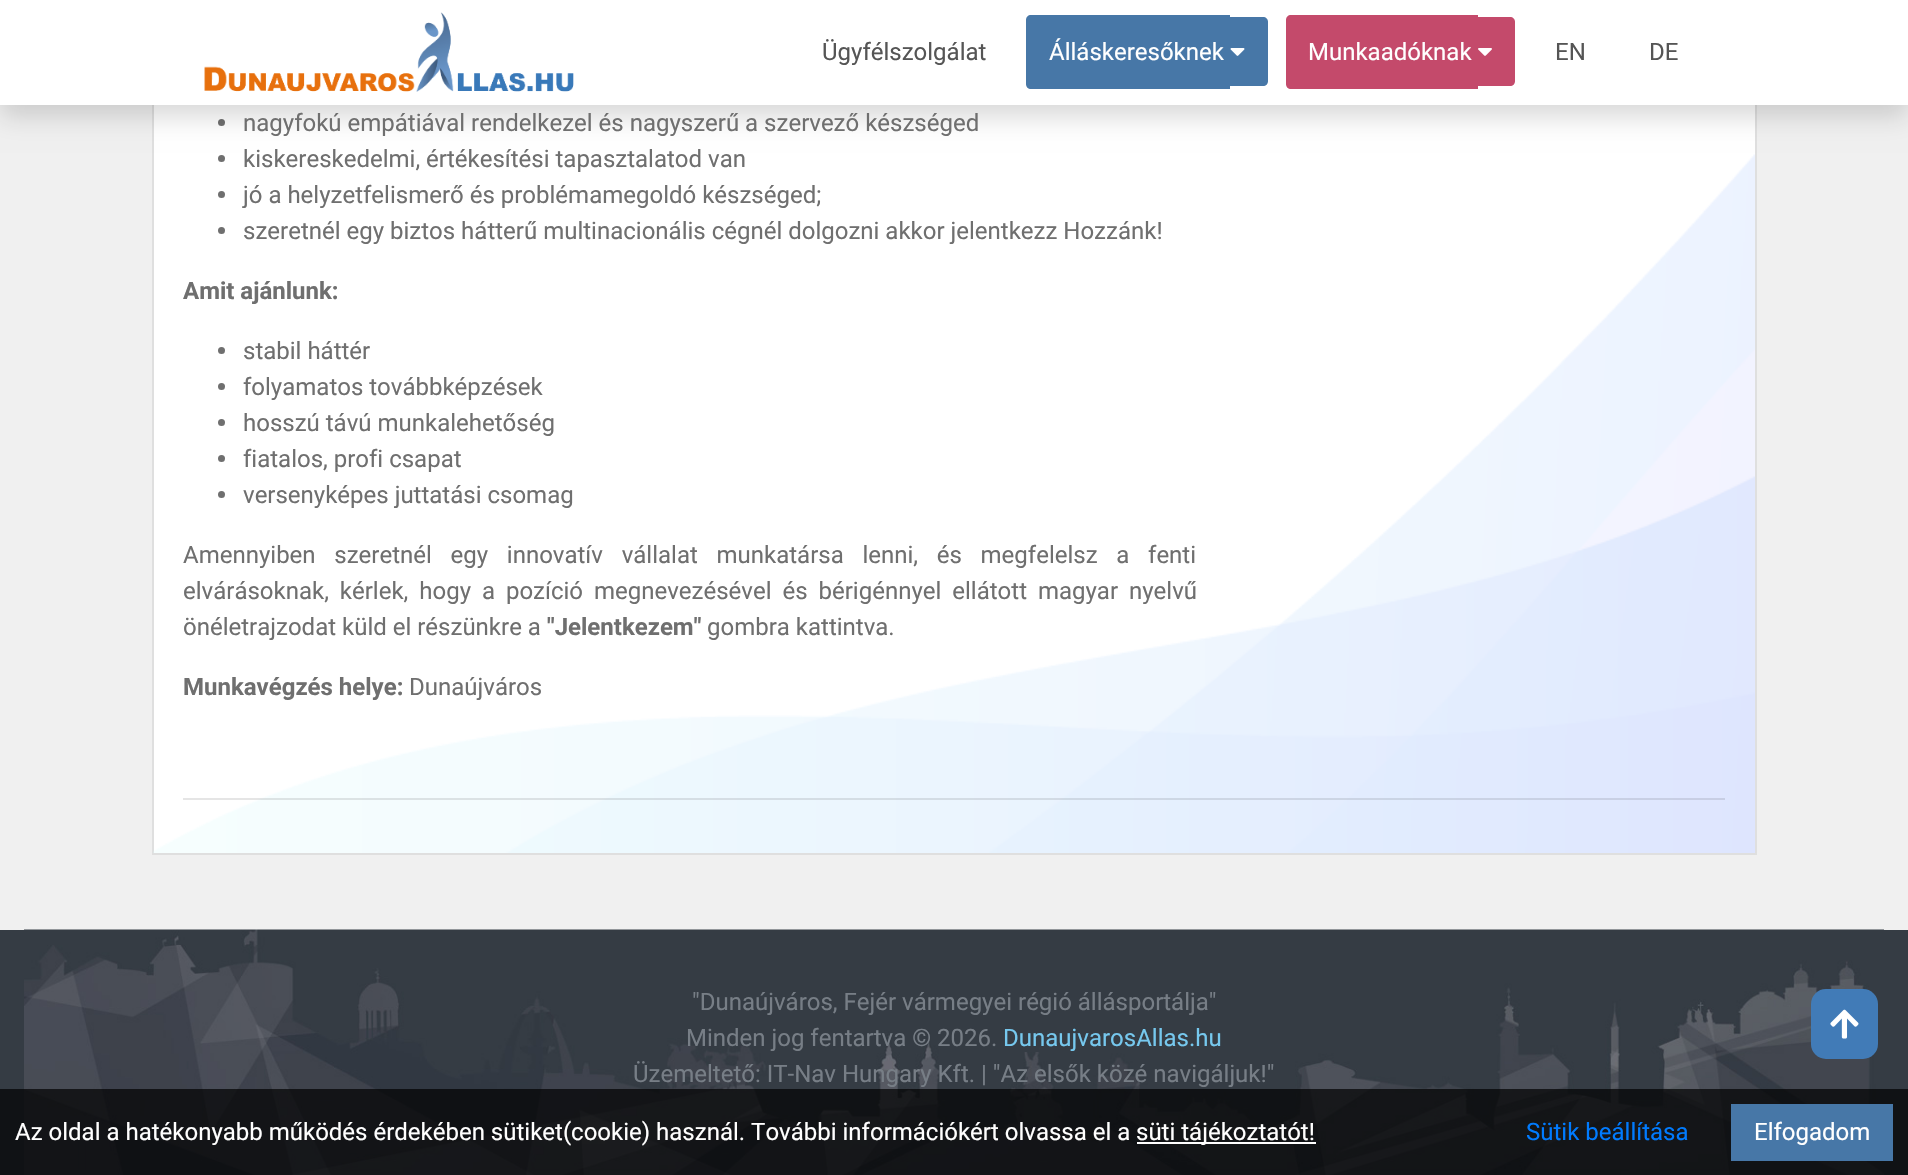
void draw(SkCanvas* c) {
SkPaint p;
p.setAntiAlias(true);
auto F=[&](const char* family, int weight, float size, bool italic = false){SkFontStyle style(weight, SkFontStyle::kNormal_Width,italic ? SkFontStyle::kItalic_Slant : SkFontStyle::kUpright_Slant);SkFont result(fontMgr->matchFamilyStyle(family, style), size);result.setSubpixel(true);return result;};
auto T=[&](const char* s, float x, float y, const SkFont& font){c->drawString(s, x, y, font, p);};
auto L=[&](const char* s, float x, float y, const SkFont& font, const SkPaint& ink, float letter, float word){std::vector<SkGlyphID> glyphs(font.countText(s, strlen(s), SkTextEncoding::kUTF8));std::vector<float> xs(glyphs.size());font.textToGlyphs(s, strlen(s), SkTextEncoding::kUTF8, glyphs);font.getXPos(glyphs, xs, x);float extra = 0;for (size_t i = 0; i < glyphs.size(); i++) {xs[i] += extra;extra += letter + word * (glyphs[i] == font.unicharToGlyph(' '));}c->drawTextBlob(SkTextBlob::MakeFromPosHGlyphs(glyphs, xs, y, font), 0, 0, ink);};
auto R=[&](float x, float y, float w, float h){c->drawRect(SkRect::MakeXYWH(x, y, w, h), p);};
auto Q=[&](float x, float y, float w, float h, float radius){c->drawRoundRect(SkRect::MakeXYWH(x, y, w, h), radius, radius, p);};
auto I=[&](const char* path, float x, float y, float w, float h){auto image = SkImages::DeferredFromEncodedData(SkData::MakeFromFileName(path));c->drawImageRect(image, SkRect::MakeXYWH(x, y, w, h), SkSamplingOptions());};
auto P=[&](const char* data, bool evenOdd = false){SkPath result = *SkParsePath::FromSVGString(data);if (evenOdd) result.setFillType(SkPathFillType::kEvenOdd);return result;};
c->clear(0xfff0f0f0);
p.setColor(0xffffffff);
R(154,105,1601,748);
p.setStroke(true);
p.setStrokeWidth(2);
p.setColor(0xffdfdfdf);
c->drawRect(SkRect::MakeXYWH(153,-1,1603,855),p);
p.setStroke(false);
p.setColor(0xff6f6f6f);
c->drawCircle(221.5,122.5,3.5,p);
p.setColor(0x26000000);
p.setMaskFilter(SkMaskFilter::MakeBlur(kNormal_SkBlurStyle, 12));
c->drawRect(SkRect::MakeXYWH(0,12,1908,105),p);
p.setMaskFilter(nullptr);
p.setColor(0xffffffff);
R(0,0,1908,105);
I("1.png",204,12,370,80);
auto f1 = F("Roboto",400,24);
p.setColor(0xff555555);
T("Ügyfélszolgálat",822,60,f1);
p.setColor(0xff4777a7);
c->drawPath(P("M1031 15h199v74h-199c-3 0-5-2-5-5v-64c0-3 2-5 5-5z"),p);
c->drawPath(P("M1230 17h33c3 0 5 2 5 5v59c0 3-2 5-5 5h-33z"),p);
p.setColor(0xffffffff);
T("Álláskeresőknek",1049,60,f1);
I("2.png",1230,48,15,8);
p.setColor(0xffc44a6b);
c->drawPath(P("M1291 15h187v74h-187c-3 0-5-2-5-5v-64c0-3 2-5 5-5z"),p);
c->drawPath(P("M1478 17h32c3 0 5 2 5 5v59c0 3-2 5-5 5h-32z"),p);
p.setColor(0xffffffff);
T("Munkaadóknak",1308,60,f1);
I("3.png",1478,48,14,8);
p.setColor(0xff555555);
T("EN",1555,60,f1);
T("DE",1649,60,f1);
I("4.png",153,154,1602,699);
p.setColor(0xff6f6f6f);
T("nagyfokú empátiával rendelkezel és nagyszerű a szervező készséged",243,131,f1);
c->drawCircle(221.5,158.5,3.5,p);
T("kiskereskedelmi, értékesítési tapasztalatod van",243,167,f1);
c->drawCircle(221.5,194.5,3.5,p);
T("jó a helyzetfelismerő és problémamegoldó készséged;",243,203,f1);
c->drawCircle(221.5,230.5,3.5,p);
T("szeretnél egy biztos hátterű multinacionális cégnél dolgozni akkor jelentkezz Hozzánk!",243,239,f1);
auto f2 = F("Roboto",700,24);
T("Amit ajánlunk:",183,299,f2);
c->drawCircle(221.5,350.5,3.5,p);
T("stabil háttér",243,359,f1);
c->drawCircle(221.5,386.5,3.5,p);
T("folyamatos továbbképzések",243,395,f1);
c->drawCircle(221.5,422.5,3.5,p);
T("hosszú távú munkalehetőség",243,431,f1);
c->drawCircle(221.5,458.5,3.5,p);
T("fiatalos, profi csapat",243,467,f1);
c->drawCircle(221.5,494.5,3.5,p);
T("versenyképes juttatási csomag",243,503,f1);
L("Amennyiben szeretnél egy innovatív vállalat munkatársa lenni, és megfelelsz a fenti",183,563,f1,p,0,12.75);
L("elvárásoknak, kérlek, hogy a pozíció megnevezésével és bérigénnyel ellátott magyar nyelvű",183,599,f1,p,0,5);
T("önéletrajzodat küld el részünkre a",183,635,f1);
T("\"Jelentkezem\"",547,635,f2);
T("gombra kattintva.",707,635,f1);
T("Munkavégzés helye:",183,695,f2);
T("Dunaújváros",409,695,f1);
p.setColor(0x1a000000);
R(183,798,1542,2);
p.setColor(0xff353c44);
R(0,930,1908,245);
I("6.png",24,929,1860,246);
p.setColor(0xb3000000);
R(0,1089,1908,86);
p.setColor(0xffffffff);
T("Az oldal a hatékonyabb működés érdekében sütiket(cookie) használ. További információkért olvassa el a",15,1140,f1);
R(1137,1142,179,2);
T("süti tájékoztatót!",1136,1140,f1);
p.setColor(0xff007bff);
T("Sütik beállítása",1526,1140,f1);
p.setColor(0xff4777a7);
R(1731,1104,162,57);
p.setColor(0xffffffff);
T("Elfogadom",1754,1140,f1);
p.setColor(0xff417bb7);
Q(1811,989,67,70,15);
I("5.png",1830,1009,29,30);
p.setColor(0xff777e86);
T("\"Dunaújváros, Fejér vármegyei régió állásportálja\"",692,1010,f1);
T("Minden jog fentartva © 2026.",686,1046,f1);
p.setColor(0xff353c44);
R(1024,1030,15,22);
p.setColor(0xff76c8ee);
T("DunaujvarosAllas.hu",1003,1046,f1);
p.setColor(0xff777e86);
T("Üzemeltető: IT-Nav Hungary Kft. | \"Az elsők közé navigáljuk!\"",633,1082,f1);
}
